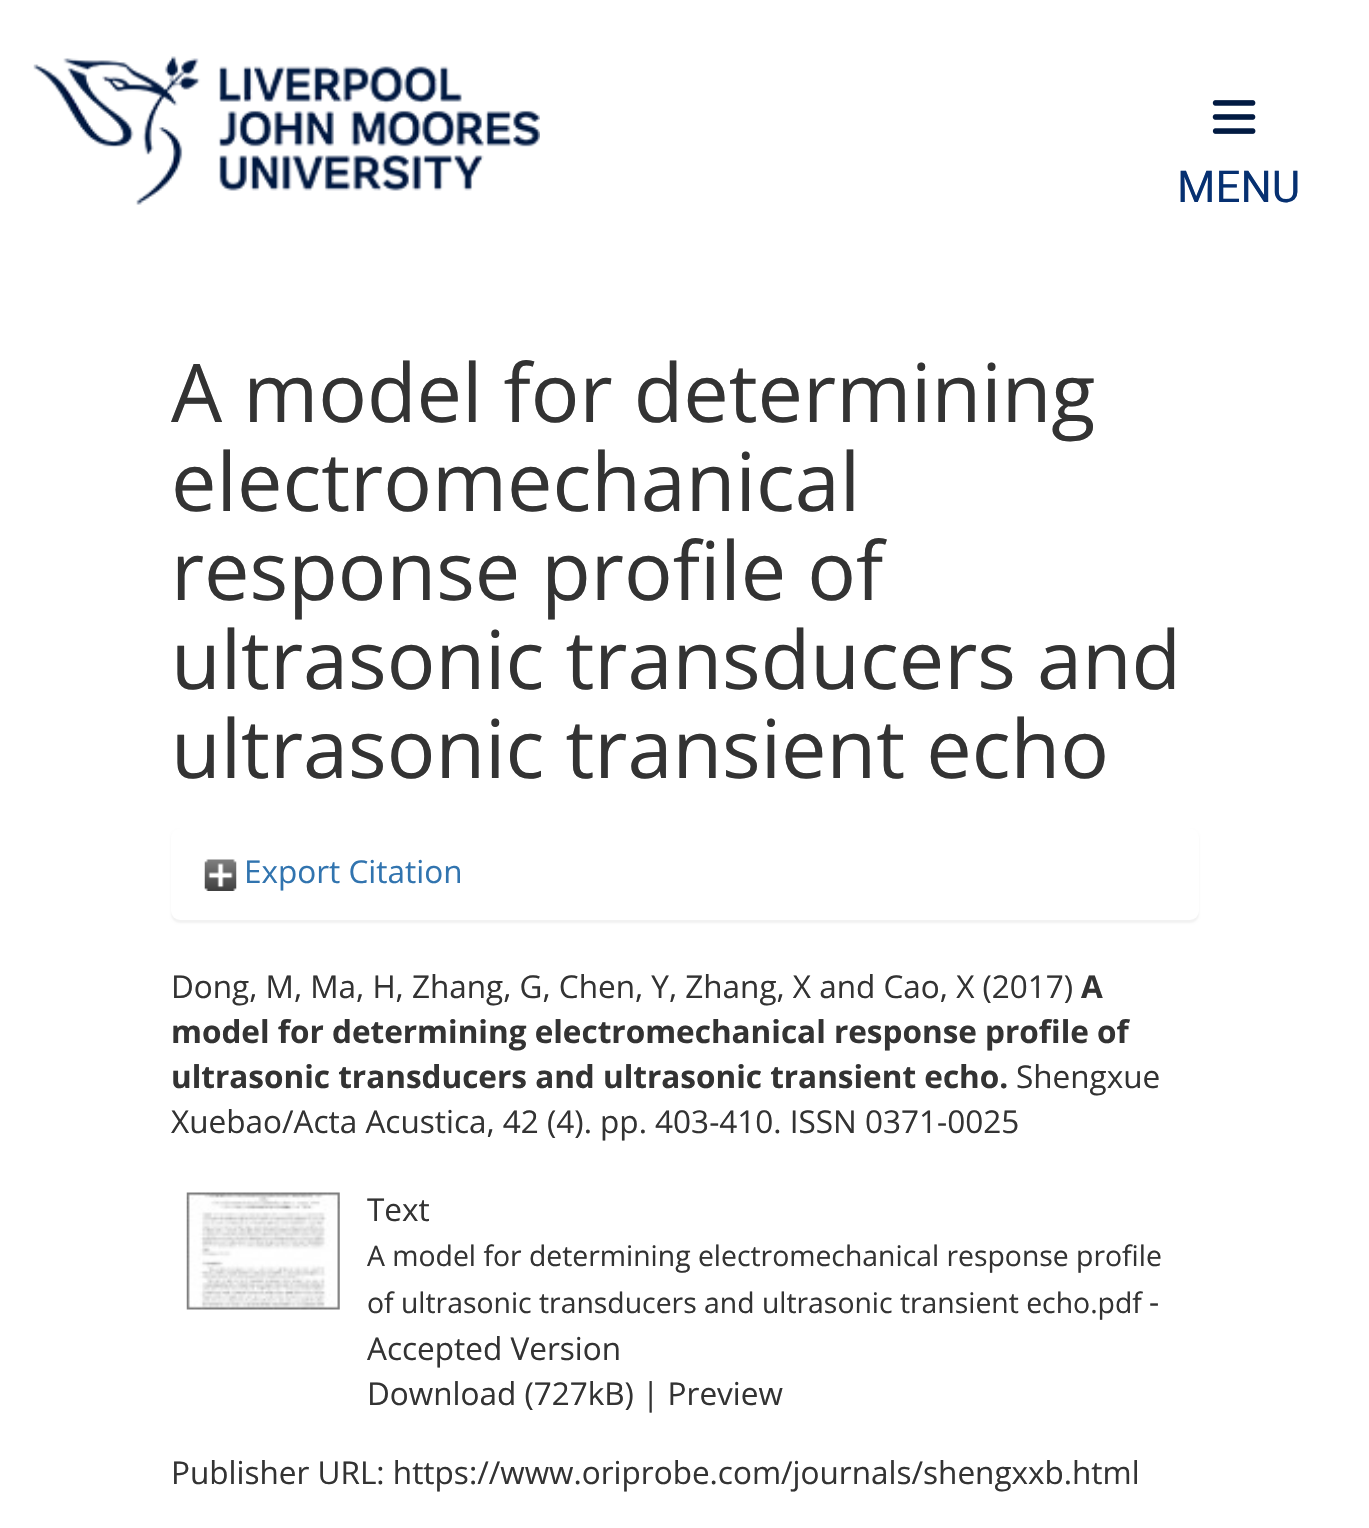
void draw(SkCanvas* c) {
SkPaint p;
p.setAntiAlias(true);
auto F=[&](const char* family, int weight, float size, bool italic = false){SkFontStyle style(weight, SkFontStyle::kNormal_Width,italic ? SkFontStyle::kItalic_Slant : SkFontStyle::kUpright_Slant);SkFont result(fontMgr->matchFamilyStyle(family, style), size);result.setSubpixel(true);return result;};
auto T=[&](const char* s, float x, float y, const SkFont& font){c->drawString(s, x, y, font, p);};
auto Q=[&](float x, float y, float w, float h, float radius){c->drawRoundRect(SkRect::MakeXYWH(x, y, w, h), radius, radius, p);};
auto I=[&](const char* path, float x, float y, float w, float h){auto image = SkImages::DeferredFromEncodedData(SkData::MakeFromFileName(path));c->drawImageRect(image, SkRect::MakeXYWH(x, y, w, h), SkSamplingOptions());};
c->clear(0xffffffff);
I("1.png",33,56,507,149);
I("2.png",1212,100,44,34);
auto f1 = F("Roboto",400,44);
p.setColor(0xff063071);
T("MENU",1177,202,f1);
auto f2 = F("Open Sans",400,81);
p.setColor(0xff333333);
T("A model for determining",171,422,f2);
T("electromechanical",171,511,f2);
T("response profile of",171,600,f2);
T("ultrasonic transducers and",171,689,f2);
T("ultrasonic transient echo",171,778,f2);
p.setColor(0x0d000000);
p.setMaskFilter(SkMaskFilter::MakeBlur(kNormal_SkBlurStyle, 1));
c->drawRoundRect(SkRect::MakeXYWH(171,830,1028,93),9,9,p);
p.setMaskFilter(nullptr);
p.setColor(0xffffffff);
Q(171,828,1028,92,9);
I("3.png",204,859,33,32);
auto f3 = F("Open Sans",400,31.5);
p.setColor(0xff3174af);
T("Export Citation",244,883,f3);
p.setColor(0xff333333);
T("Dong, M, Ma, H, Zhang, G, Chen, Y, Zhang, X and Cao, X (2017)",171,998,f3);
auto f4 = F("Open Sans",700,31.5);
T("A",1081,998,f4);
T("model for determining electromechanical response profile of",171,1043,f4);
T("ultrasonic transducers and ultrasonic transient echo.",171,1088,f4);
T("Shengxue",1016,1088,f3);
T("Xuebao/Acta Acustica, 42 (4). pp. 403-410. ISSN 0371-0025",171,1133,f3);
I("4.png",186,1192,154,118);
T("Text",367,1221,f3);
auto f5 = F("Open Sans",400,28.35);
T("A model for determining electromechanical response profile",367,1266,f5);
T("of ultrasonic transducers and ultrasonic transient echo.pdf",367,1313,f5);
T("-",1149,1313,f3);
T("Accepted Version",367,1360,f3);
T("Download (727kB) | Preview",367,1405,f3);
T("Publisher URL: https://www.oriprobe.com/journals/shengxxb.html",171,1484,f3);
}
